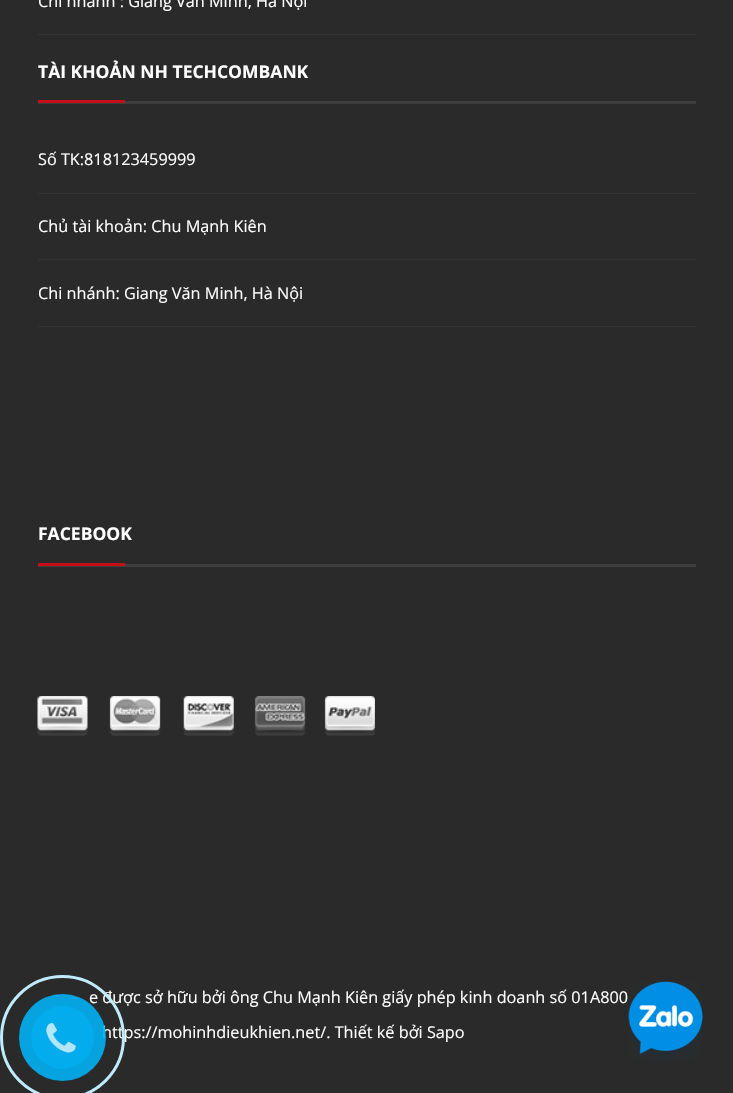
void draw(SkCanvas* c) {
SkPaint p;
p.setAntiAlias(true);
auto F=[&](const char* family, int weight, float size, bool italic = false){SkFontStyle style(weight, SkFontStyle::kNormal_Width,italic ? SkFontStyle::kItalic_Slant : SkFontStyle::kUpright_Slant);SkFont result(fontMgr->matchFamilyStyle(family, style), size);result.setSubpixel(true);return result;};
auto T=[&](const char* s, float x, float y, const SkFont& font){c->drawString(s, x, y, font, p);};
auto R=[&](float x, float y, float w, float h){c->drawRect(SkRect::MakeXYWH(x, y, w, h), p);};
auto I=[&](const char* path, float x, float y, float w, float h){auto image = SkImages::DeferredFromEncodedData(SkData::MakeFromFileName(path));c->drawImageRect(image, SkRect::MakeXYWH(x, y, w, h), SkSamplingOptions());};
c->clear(0xff2a2a2a);
p.setColor(0xff343434);
R(38,34,658,1);
auto f1 = F("Open Sans",400,16.25);
p.setColor(0xffffffff);
T("Chi nhánh : Giang Văn Minh, Hà Nội",38,7,f1);
p.setColor(0xff3e3e3e);
R(38,101,658,3);
auto f2 = F("Open Sans",700,17.5);
p.setColor(0xffffffff);
T("TÀI KHOẢN NH TECHCOMBANK",38,78,f2);
p.setColor(0xffc40e18);
R(38,100,87,3);
p.setColor(0xff343434);
R(38,193,658,1);
p.setColor(0xffffffff);
T("Số TK:818123459999",38,165,f1);
p.setColor(0xff343434);
R(38,259,658,1);
p.setColor(0xffffffff);
T("Chủ tài khoản: Chu Mạnh Kiên",38,232,f1);
p.setColor(0xff343434);
R(38,326,658,1);
p.setColor(0xffffffff);
T("Chi nhánh: Giang Văn Minh, Hà Nội",38,299,f1);
p.setColor(0xff3e3e3e);
R(38,564,658,3);
p.setColor(0xffffffff);
T("FACEBOOK",38,540,f2);
p.setColor(0xffc40e18);
R(38,563,87,3);
I("1.png",37,696,338,40);
p.setColor(0xffffffff);
T("e được sở hữu bởi ông Chu Mạnh Kiên giấy phép kinh doanh số 01A800",89,1003,f1);
T("https://mohinhdieukhien.net/. Thiết kế bởi Sapo",102,1038,f1);
p.setStroke(true);
p.setStrokeWidth(3);
p.setColor(0xffbfebfc);
c->drawCircle(62.5,1037.5,61,p);
p.setStroke(false);
p.setColor(0xe600aff2);
c->drawCircle(62.5,1037.5,43.5,p);
p.setColor(0xb300aff2);
c->drawCircle(62.5,1037.5,31.5,p);
I("2.png",46,1023,30,30);
I("3.png",628,981,75,80);
}
